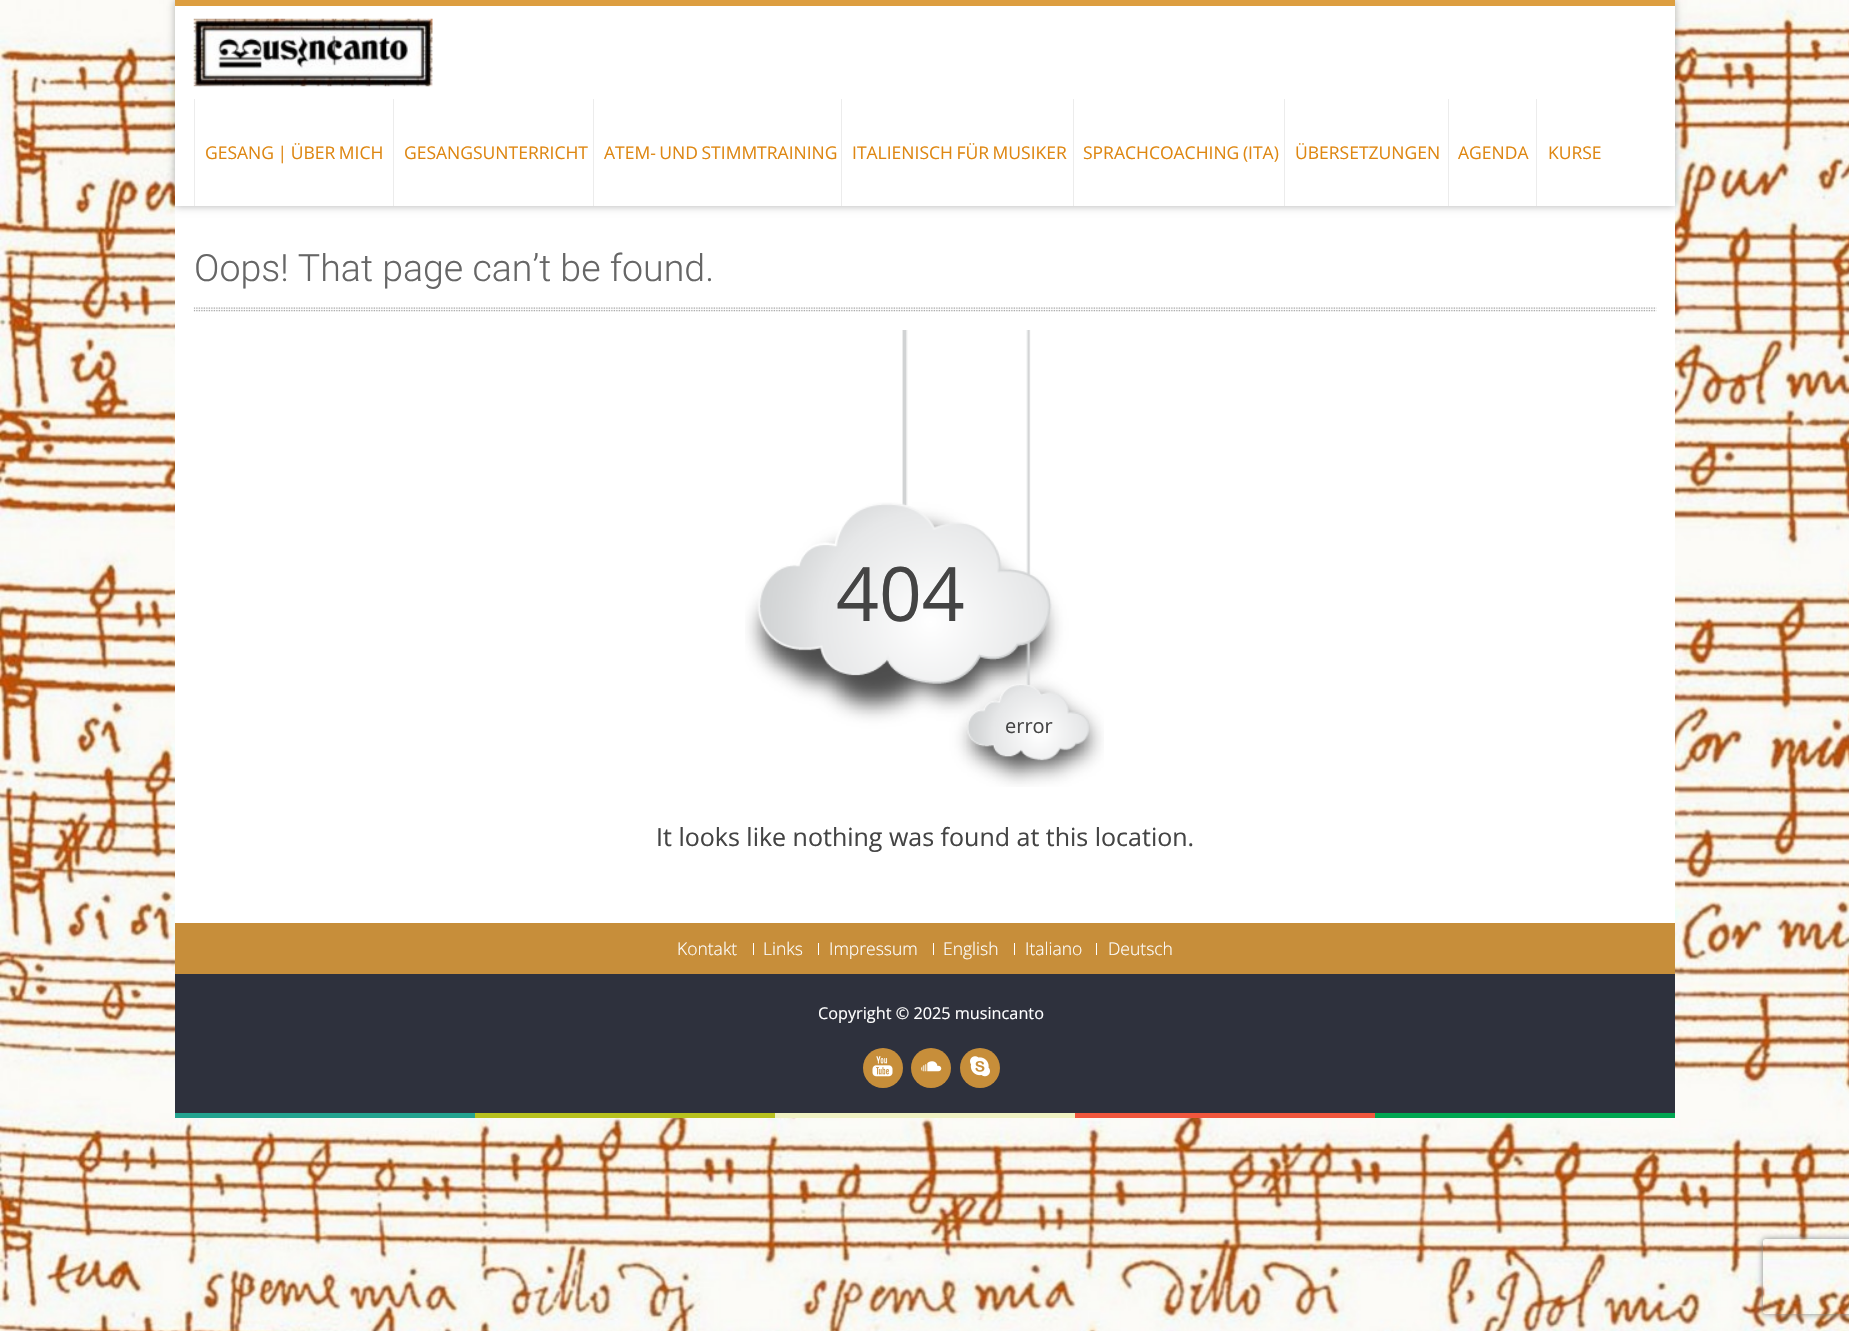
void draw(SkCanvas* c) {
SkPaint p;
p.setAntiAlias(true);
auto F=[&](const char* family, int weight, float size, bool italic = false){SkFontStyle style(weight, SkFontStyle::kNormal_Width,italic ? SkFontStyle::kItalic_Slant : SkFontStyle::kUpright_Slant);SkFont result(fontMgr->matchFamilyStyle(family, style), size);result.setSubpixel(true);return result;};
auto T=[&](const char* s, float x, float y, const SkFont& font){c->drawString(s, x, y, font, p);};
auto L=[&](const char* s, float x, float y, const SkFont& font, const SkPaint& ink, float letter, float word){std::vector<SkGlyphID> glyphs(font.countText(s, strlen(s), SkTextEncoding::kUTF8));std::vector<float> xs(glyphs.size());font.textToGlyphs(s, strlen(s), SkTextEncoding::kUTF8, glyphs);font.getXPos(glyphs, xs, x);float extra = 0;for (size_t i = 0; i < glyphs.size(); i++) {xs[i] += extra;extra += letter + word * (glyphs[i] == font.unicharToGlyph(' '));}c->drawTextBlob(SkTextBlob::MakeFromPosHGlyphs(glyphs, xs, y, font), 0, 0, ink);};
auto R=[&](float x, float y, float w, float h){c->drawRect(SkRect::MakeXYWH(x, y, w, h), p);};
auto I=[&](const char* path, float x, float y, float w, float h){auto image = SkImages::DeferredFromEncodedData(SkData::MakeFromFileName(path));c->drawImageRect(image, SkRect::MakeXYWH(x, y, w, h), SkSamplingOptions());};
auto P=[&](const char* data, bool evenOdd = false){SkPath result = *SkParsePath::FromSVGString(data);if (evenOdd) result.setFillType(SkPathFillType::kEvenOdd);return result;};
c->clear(0xffffffff);
I("1.png",0,0,1849,1331);
p.setColor(0xffffffff);
R(175,206,1500,717);
p.setColor(0x4d000000);
p.setMaskFilter(SkMaskFilter::MakeBlur(kNormal_SkBlurStyle, 4));
c->drawRect(SkRect::MakeXYWH(175,0,1500,206),p);
p.setMaskFilter(nullptr);
p.setColor(0xffffffff);
R(175,6,1500,200);
p.setColor(0xffdd9e40);
R(175,0,1500,6);
I("2.png",193,18,240,69);
p.setColor(0xffececec);
R(194,99,1,107);
auto f1 = F("Open Sans",400,17.5);
p.setColor(0xffde8712);
L("GESANG | ÜBER MICH",205,159,f1,p,0,-1);
p.setColor(0xffececec);
R(393,99,1,107);
p.setColor(0xffde8712);
T("GESANGSUNTERRICHT",404,159,f1);
p.setColor(0xffececec);
R(593,99,1,107);
p.setColor(0xffde8712);
L("ATEM- UND STIMMTRAINING",604,159,f1,p,0,-1);
p.setColor(0xffececec);
R(841,99,1,107);
p.setColor(0xffde8712);
L("ITALIENISCH FÜR MUSIKER",852,159,f1,p,0,-1);
p.setColor(0xffececec);
R(1073,99,1,107);
p.setColor(0xffde8712);
L("SPRACHCOACHING (ITA)",1083,159,f1,p,0,-1);
p.setColor(0xffececec);
R(1284,99,1,107);
p.setColor(0xffde8712);
T("ÜBERSETZUNGEN",1295,159,f1);
p.setColor(0xffececec);
R(1448,99,1,107);
p.setColor(0xffde8712);
T("AGENDA",1458,159,f1);
p.setColor(0xffececec);
R(1536,99,1,107);
p.setColor(0xffde8712);
T("KURSE",1548,159,f1);
I("3.png",193,307,1464,5);
auto f2 = F("Roboto",300,37.5);
p.setColor(0xff666666);
T("Oops! That page can’t be found.",194,281,f2);
I("4.png",745,330,359,457);
auto f3 = F("Open Sans",400,75);
p.setColor(0xff444444);
T("404",836,621,f3);
auto f4 = F("Open Sans",400,20);
T("error",1005,733,f4);
auto f5 = F("Open Sans",400,25);
T("It looks like nothing was found at this location.",656,846,f5);
p.setColor(0xffc78e3a);
R(175,923,1500,51);
auto f6 = F("Open Sans",300,17.5);
p.setColor(0xffffffff);
T("Kontakt",677,955,f6);
R(753,943,1,12);
T("Links",763,955,f6);
R(818,943,1,12);
T("Impressum",829,955,f6);
R(933,943,1,12);
T("English",943,955,f6);
R(1014,943,1,12);
T("Italiano",1025,955,f6);
R(1096,943,1,12);
T("Deutsch",1108,955,f6);
p.setColor(0xff2e313d);
R(175,974,1500,139);
auto f7 = F("Open Sans",400,16.25);
p.setColor(0xffffffff);
T("Copyright © 2025 musincanto",818,1019,f7);
p.setColor(0xffc78e3a);
c->drawCircle(883,1068,20,p);
I("5.png",872,1056,21,21);
c->drawCircle(931,1068,20,p);
I("6.png",921,1061,21,11);
c->drawCircle(980,1068,20,p);
I("7.png",970,1056,20,21);
p.setColor(0xff23a38f);
R(175,1113,300,5);
p.setColor(0xffb7c11e);
R(475,1113,300,5);
p.setColor(0xffeff1c2);
R(775,1113,300,5);
p.setColor(0xfff0563d);
R(1075,1113,300,5);
p.setColor(0xff00a651);
R(1375,1113,300,5);
c->save();
c->clipPath(P("M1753 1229h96v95h-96zm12.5 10h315c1.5 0 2.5 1 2.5 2.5v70c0 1.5-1 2.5-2.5 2.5h-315c-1.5 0-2.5-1-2.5-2.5v-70c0-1.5 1-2.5 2.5-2.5z",true),true);
p.setColor(0xff808080);
p.setMaskFilter(SkMaskFilter::MakeBlur(kNormal_SkBlurStyle, 3));
c->drawRoundRect(SkRect::MakeXYWH(1763,1239,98,75),2.5,2.5,p);
p.setMaskFilter(nullptr);
c->restore();
}
